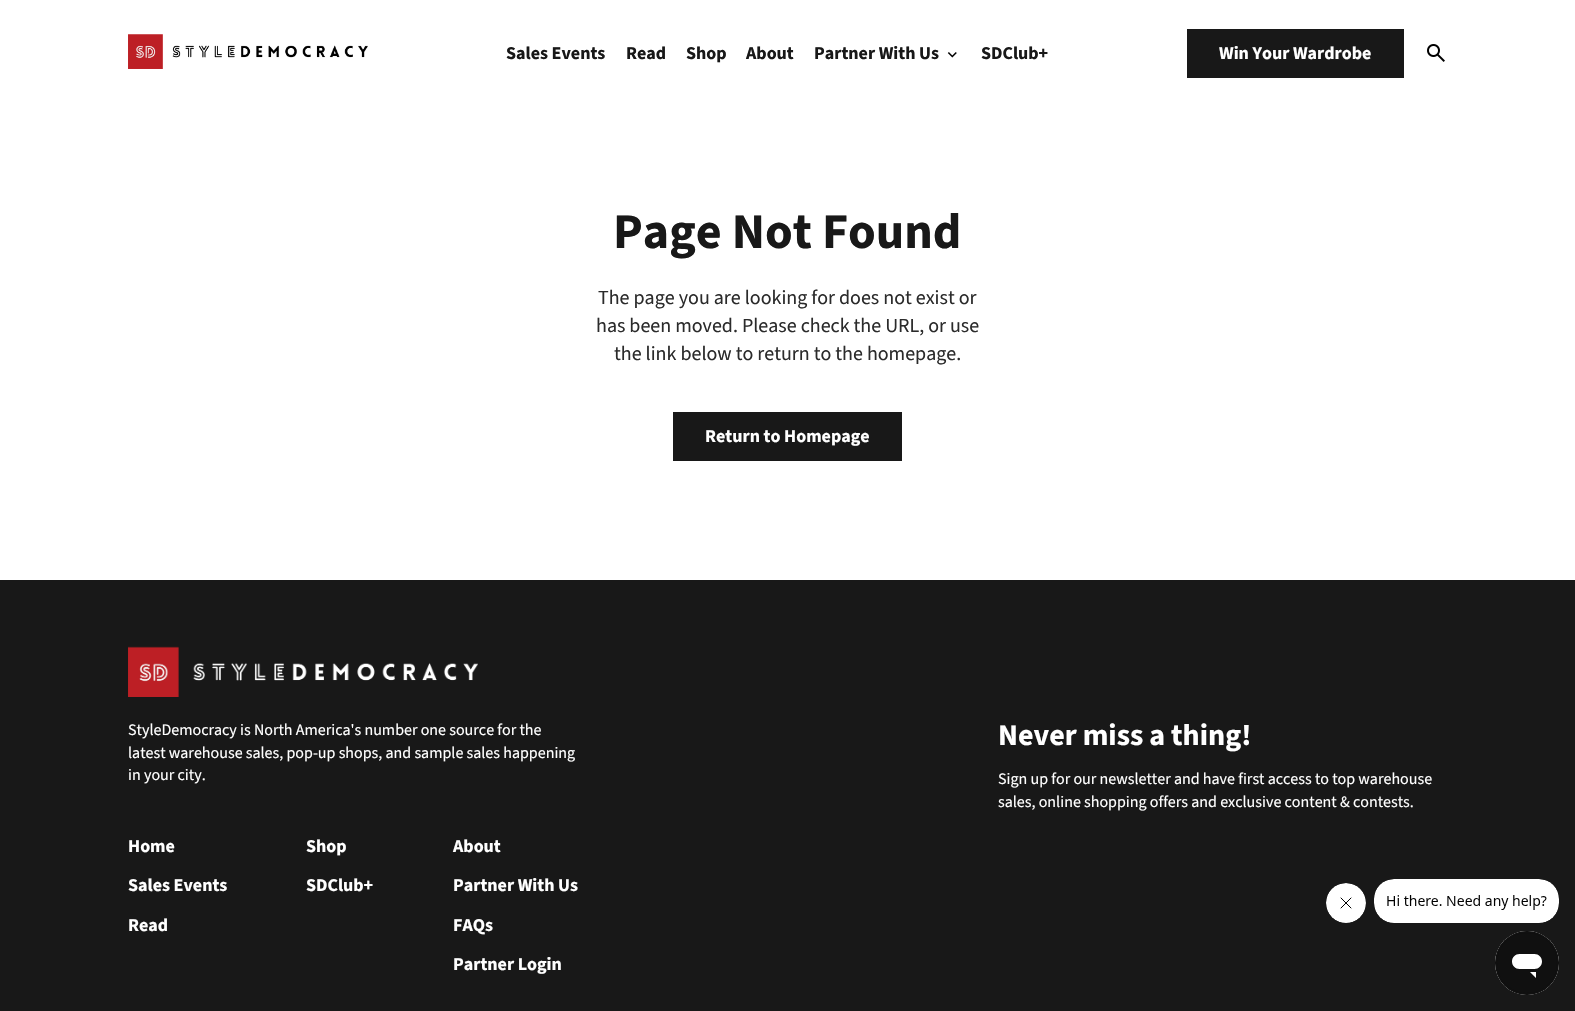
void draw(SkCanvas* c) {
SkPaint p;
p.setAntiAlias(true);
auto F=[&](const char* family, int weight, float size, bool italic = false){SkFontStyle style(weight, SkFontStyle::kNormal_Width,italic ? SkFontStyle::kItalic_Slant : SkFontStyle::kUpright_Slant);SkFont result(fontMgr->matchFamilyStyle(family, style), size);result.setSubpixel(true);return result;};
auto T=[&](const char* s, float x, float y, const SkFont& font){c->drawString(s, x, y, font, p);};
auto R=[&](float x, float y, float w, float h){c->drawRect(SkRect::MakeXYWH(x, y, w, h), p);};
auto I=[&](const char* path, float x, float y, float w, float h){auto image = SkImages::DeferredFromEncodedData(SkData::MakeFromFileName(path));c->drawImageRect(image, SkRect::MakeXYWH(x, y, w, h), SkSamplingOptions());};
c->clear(0xffffffff);
I("1.png",128,34,240,35);
auto f1 = F("Source Sans 3",700,18);
p.setColor(0xff181818);
T("Sales Events",506,59,f1);
T("Read",626,59,f1);
T("Shop",686,59,f1);
T("About",746,59,f1);
T("Partner With Us",814,59,f1);
I("2.png",947,52,10,6);
T("SDClub+",981,59,f1);
R(1187,29,217,49);
p.setColor(0xffffffff);
T("Win Your Wardrobe",1219,59,f1);
I("3.png",1427,44,18,18);
auto f2 = F("Source Sans 3",700,50);
p.setColor(0xff181818);
T("Page Not Found",613,248,f2);
auto f3 = F("Source Sans 3",400,20);
p.setColor(0xff2b2b2b);
T("The page you are looking for does not exist or",598,304,f3);
T("has been moved. Please check the URL, or use",596,332,f3);
T("the link below to return to the homepage.",614,360,f3);
p.setColor(0xff181818);
R(673,412,229,49);
p.setColor(0xffffffff);
T("Return to Homepage",705,442,f1);
p.setColor(0xff181818);
R(0,580,1575,431);
I("4.png",128,646,350,51);
auto f4 = F("Source Sans 3",400,16);
p.setColor(0xffffffff);
T("StyleDemocracy is North America's number one source for the",128,735,f4);
T("latest warehouse sales, pop-up shops, and sample sales happening",128,758,f4);
T("in your city.",128,780,f4);
T("Home",128,852,f1);
T("Sales Events",128,891,f1);
T("Read",128,931,f1);
T("Shop",306,852,f1);
T("SDClub+",306,891,f1);
T("About",453,852,f1);
T("Partner With Us",453,891,f1);
T("FAQs",453,931,f1);
T("Partner Login",453,970,f1);
auto f5 = F("Source Sans 3",700,30);
T("Never miss a thing!",998,745,f5);
T("Sign up for our newsletter and have first access to top warehouse",998,784,f4);
T("sales, online shopping offers and exclusive content & contests.",998,807,f4);
I("5.png",1326,883,40,40);
I("6.png",1374,879,185,44);
I("7.png",1495,931,64,64);
}
